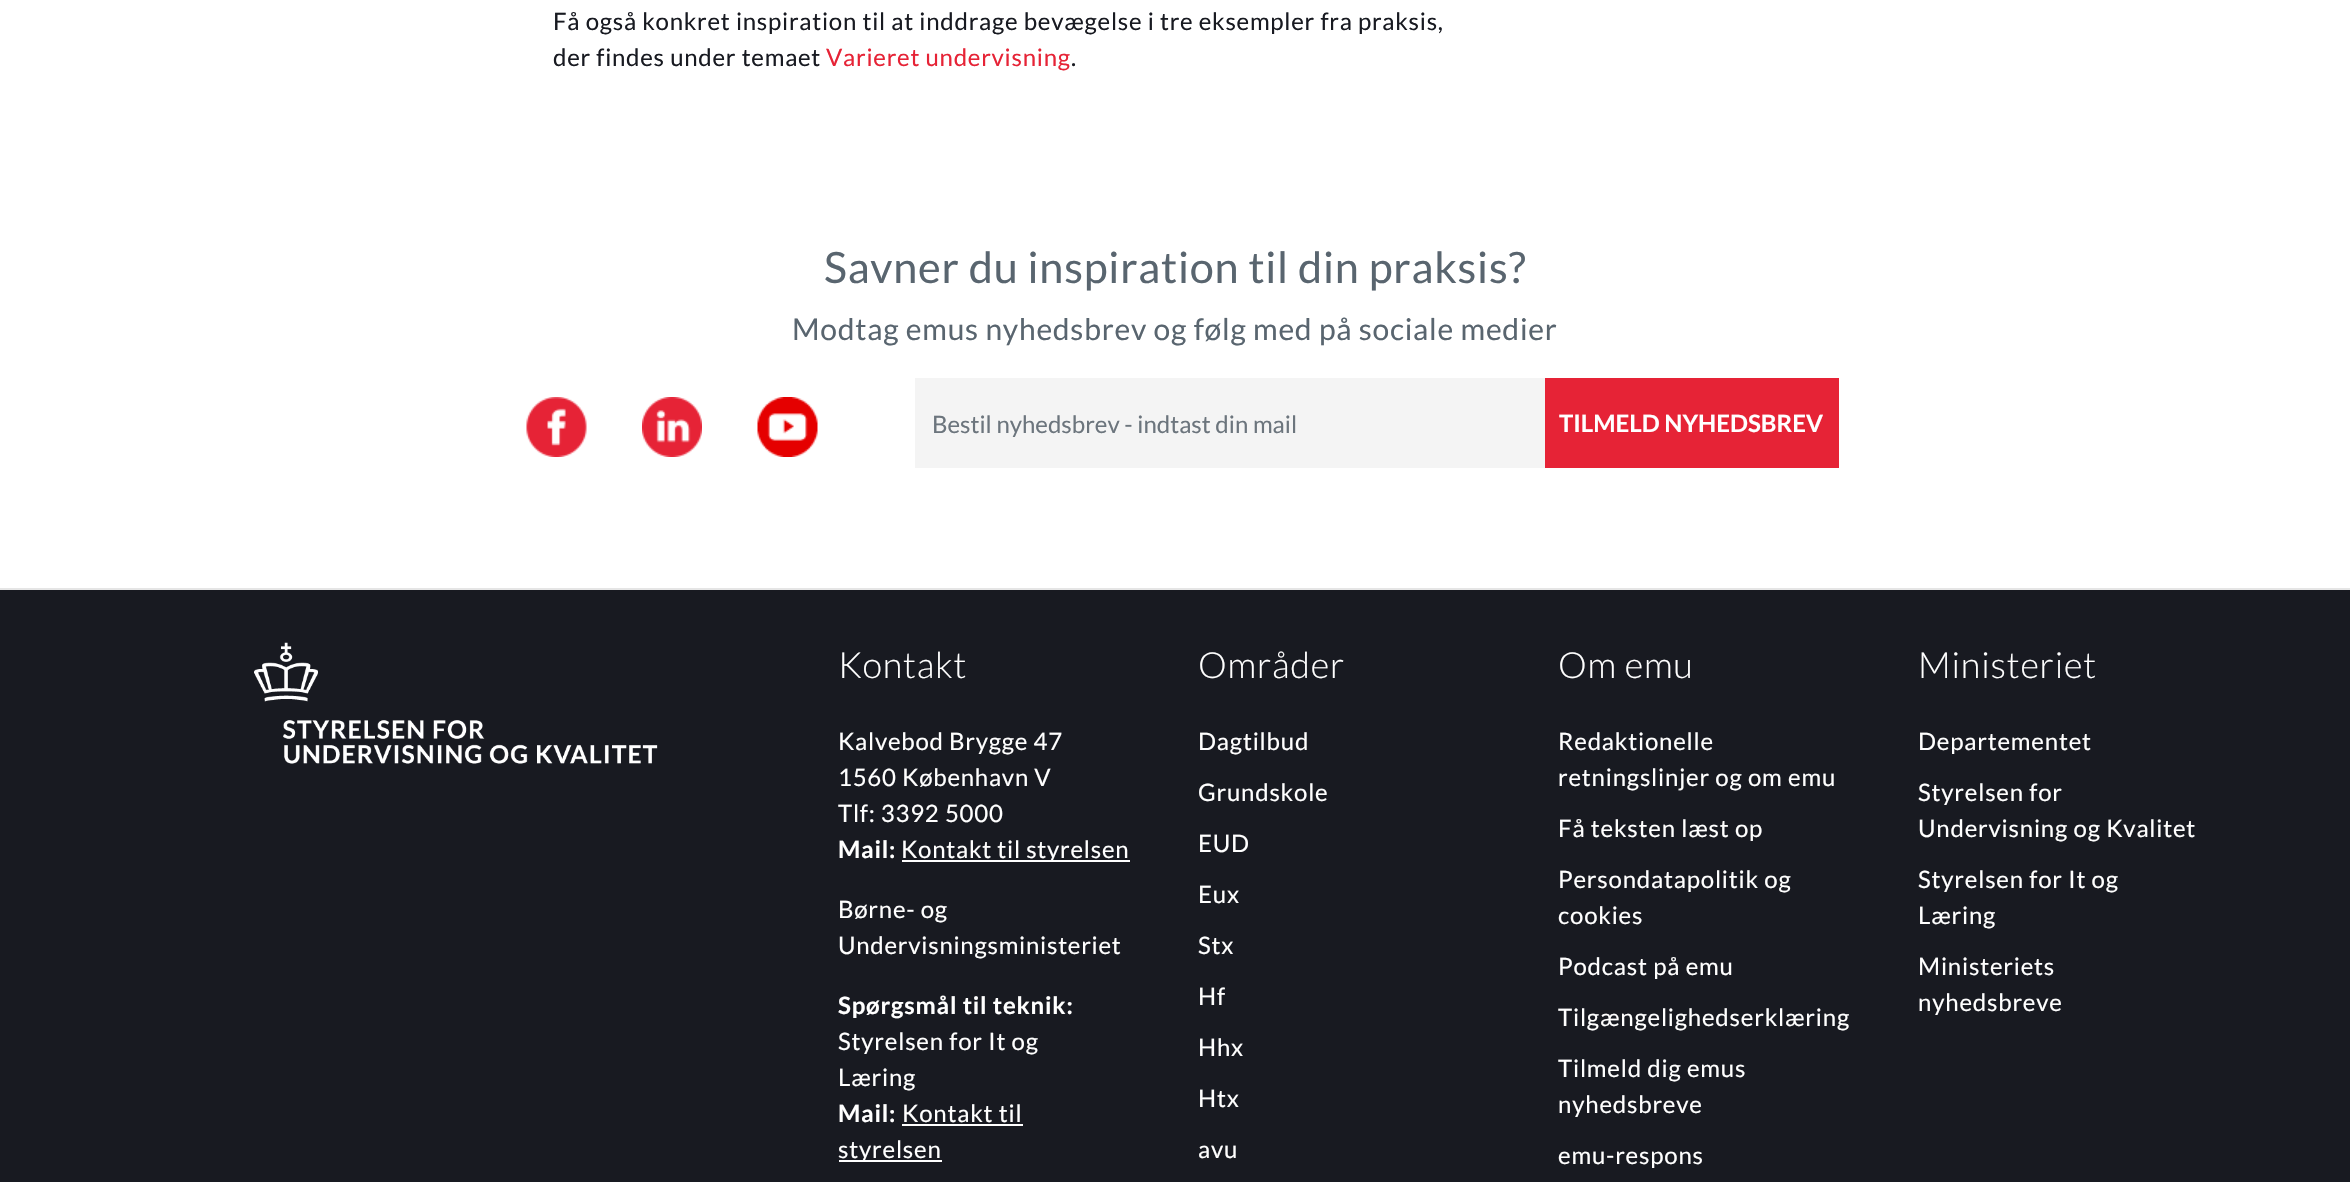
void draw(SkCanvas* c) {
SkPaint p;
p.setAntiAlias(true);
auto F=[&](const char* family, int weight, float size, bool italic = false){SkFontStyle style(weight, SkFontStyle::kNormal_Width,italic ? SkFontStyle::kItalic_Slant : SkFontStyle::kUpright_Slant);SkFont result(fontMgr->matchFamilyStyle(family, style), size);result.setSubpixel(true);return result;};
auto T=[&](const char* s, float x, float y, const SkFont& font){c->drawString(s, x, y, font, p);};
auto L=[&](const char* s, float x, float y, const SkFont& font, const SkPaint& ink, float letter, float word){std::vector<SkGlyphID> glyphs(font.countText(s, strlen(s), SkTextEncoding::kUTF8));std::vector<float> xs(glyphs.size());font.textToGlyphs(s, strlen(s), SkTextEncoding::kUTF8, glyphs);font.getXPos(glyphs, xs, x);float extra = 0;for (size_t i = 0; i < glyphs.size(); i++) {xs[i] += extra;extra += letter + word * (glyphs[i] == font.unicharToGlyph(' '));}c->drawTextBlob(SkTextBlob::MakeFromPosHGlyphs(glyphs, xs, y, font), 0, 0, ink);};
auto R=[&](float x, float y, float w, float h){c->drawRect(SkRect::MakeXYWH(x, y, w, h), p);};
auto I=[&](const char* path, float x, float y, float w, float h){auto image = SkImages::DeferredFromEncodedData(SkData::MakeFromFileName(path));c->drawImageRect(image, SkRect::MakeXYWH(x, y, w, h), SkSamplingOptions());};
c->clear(0xffffffff);
auto f1 = F("Lato",400,24);
p.setColor(0xff181a21);
L("Få også konkret inspiration til at inddrage bevægelse i tre eksempler fra praksis,",553,30,f1,p,.75,0);
L("der findes under temaet",553,66,f1,p,.75,0);
p.setColor(0xffe62336);
L("Varieret undervisning",826,66,f1,p,.75,0);
p.setColor(0xff181a21);
L(".",1071,66,f1,p,.75,0);
auto f2 = F("Lato",400,43.25);
p.setColor(0xff59656f);
L("Savner du inspiration til din praksis?",824,283,f2,p,.75,0);
auto f3 = F("Lato",400,30);
L("Modtag emus nyhedsbrev og følg med på sociale medier",792,340,f3,p,.75,0);
I("1.png",526,397,61,60);
I("2.png",642,397,60,60);
I("3.png",757,397,61,60);
p.setColor(0xfff4f4f4);
R(915,378,630,90);
p.setColor(0xff6c757d);
T("Bestil nyhedsbrev - indtast din mail",932,433,f1);
p.setColor(0xffe62336);
R(1545,378,294,90);
auto f4 = F("Lato",700,24);
p.setColor(0xffffffff);
T("TILMELD NYHEDSBREV",1559,432,f4);
p.setColor(0xff181a21);
R(0,590,2350,592);
p.setColor(0xffe5e5e5);
R(0,588,2350,2);
I("4.png",254,642,404,122);
auto f5 = F("Lato",300,36);
p.setColor(0xffffffff);
L("Kontakt",838,678,f5,p,.8,0);
L("Kalvebod Brygge 47",838,750,f1,p,.75,0);
L("1560 København V",838,786,f1,p,.75,0);
L("Tlf: 3392 5000",838,822,f1,p,.75,0);
L("Mail:",838,858,f4,p,.75,0);
R(902,860,228,2);
L("Kontakt til styrelsen",901,858,f1,p,.75,0);
L("Børne- og",838,918,f1,p,.75,0);
L("Undervisningsministeriet",838,954,f1,p,.75,0);
L("Spørgsmål til teknik:",838,1014,f4,p,.8,0);
L("Styrelsen for It og",838,1050,f1,p,.8,0);
L("Læring",838,1086,f1,p,.8,0);
L("Mail:",838,1122,f4,p,.8,0);
L("Kontakt til",902,1122,f1,p,.8,0);
R(902,1124,121,2);
R(839,1160,103,2);
L("styrelsen",838,1158,f1,p,.8,0);
L("Områder",1198,678,f5,p,.8,0);
L("Dagtilbud",1198,750,f1,p,.8,0);
L("Grundskole",1198,801,f1,p,.8,0);
L("EUD",1198,852,f1,p,.8,0);
L("Eux",1198,903,f1,p,.8,0);
L("Stx",1198,954,f1,p,.8,0);
L("Hf",1198,1005,f1,p,.8,0);
L("Hhx",1198,1056,f1,p,.8,0);
L("Htx",1198,1107,f1,p,.8,0);
L("avu",1198,1158,f1,p,.8,0);
L("Om emu",1558,678,f5,p,.8,0);
L("Redaktionelle",1558,750,f1,p,.8,0);
L("retningslinjer og om emu",1558,786,f1,p,.8,0);
L("Få teksten læst op",1558,837,f1,p,.8,0);
L("Persondatapolitik og",1558,888,f1,p,.8,0);
L("cookies",1558,924,f1,p,.8,0);
L("Podcast på emu",1558,975,f1,p,.8,0);
L("Tilgængelighedserklæring",1558,1026,f1,p,.8,0);
L("Tilmeld dig emus",1558,1077,f1,p,.8,0);
L("nyhedsbreve",1558,1113,f1,p,.8,0);
L("emu-respons",1558,1164,f1,p,.8,0);
L("Ministeriet",1918,678,f5,p,.8,0);
L("Departementet",1918,750,f1,p,.8,0);
L("Styrelsen for",1918,801,f1,p,.8,0);
L("Undervisning og Kvalitet",1918,837,f1,p,.8,0);
L("Styrelsen for It og",1918,888,f1,p,.8,0);
L("Læring",1918,924,f1,p,.8,0);
L("Ministeriets",1918,975,f1,p,.8,0);
L("nyhedsbreve",1918,1011,f1,p,.8,0);
}
